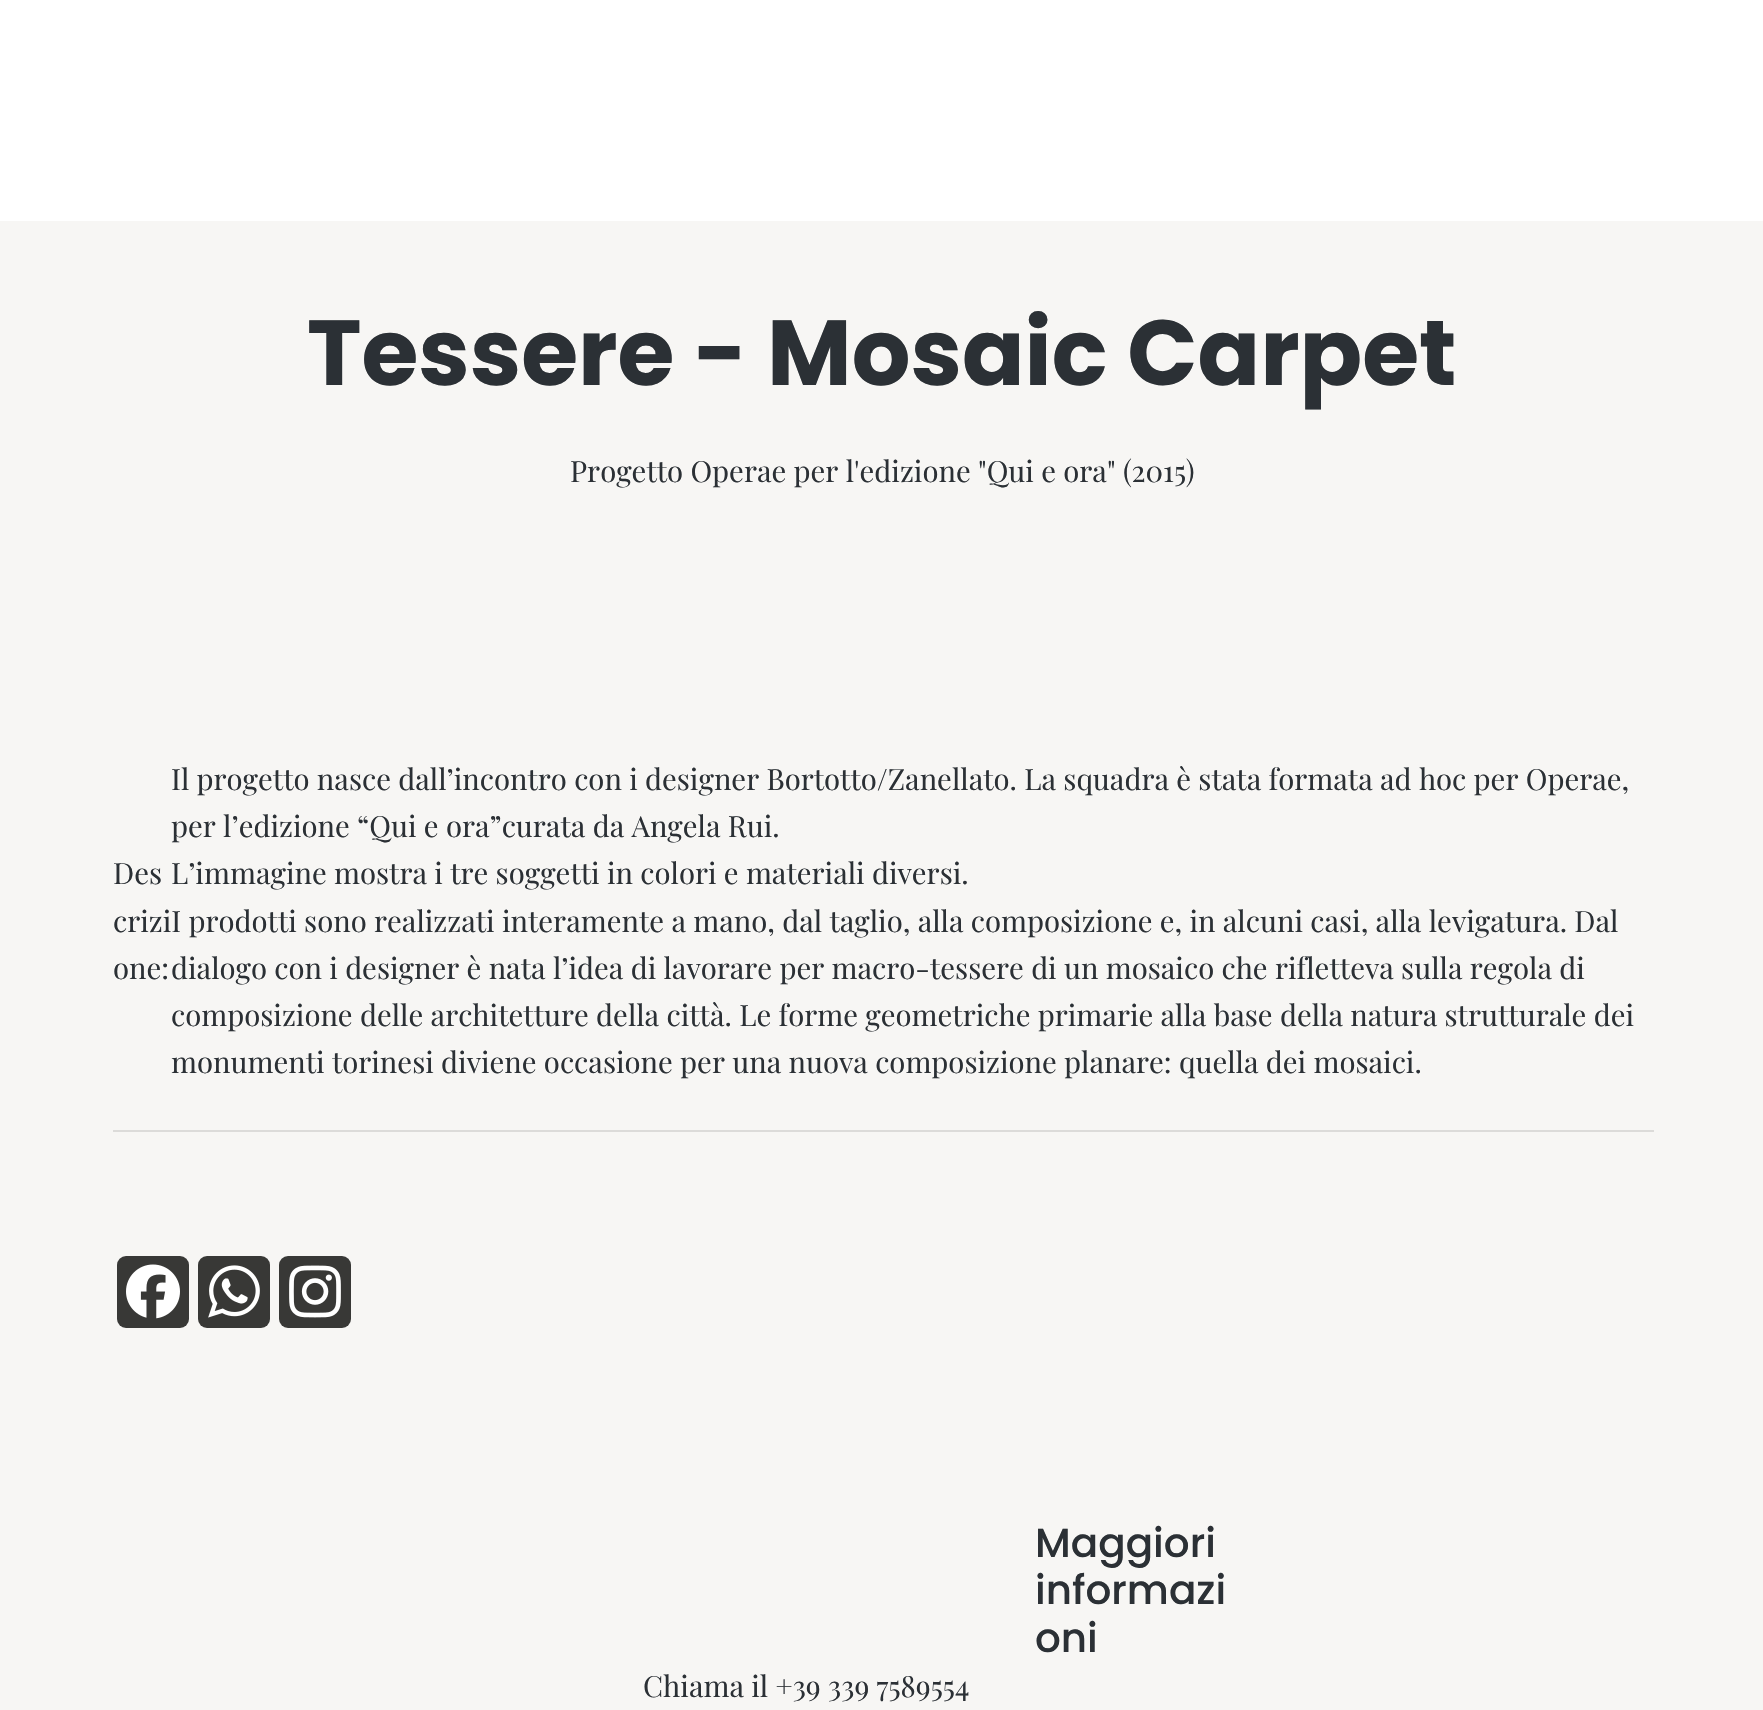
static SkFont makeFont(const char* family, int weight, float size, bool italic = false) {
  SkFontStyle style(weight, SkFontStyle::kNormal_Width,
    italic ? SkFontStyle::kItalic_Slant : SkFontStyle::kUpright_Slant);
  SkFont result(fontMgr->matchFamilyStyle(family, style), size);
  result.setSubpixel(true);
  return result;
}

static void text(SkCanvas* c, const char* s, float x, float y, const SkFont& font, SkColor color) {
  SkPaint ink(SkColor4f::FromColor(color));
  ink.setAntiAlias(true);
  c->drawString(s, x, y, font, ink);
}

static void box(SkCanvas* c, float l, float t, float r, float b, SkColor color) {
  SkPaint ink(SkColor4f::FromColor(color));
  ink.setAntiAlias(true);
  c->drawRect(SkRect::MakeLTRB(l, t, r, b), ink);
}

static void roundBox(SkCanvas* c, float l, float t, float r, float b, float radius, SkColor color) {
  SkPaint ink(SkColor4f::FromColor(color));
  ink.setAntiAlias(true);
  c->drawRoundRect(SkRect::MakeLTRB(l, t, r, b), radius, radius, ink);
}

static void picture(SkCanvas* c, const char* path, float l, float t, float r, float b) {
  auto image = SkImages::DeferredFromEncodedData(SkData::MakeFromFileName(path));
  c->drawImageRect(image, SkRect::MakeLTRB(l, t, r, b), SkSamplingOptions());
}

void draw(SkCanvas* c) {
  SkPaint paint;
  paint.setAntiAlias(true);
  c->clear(0xfff7f6f4);
  box(c, 0, 0, 1763, 221, 0xffffffff);
  SkFont face1 = makeFont("Poppins", 700, 92.25f);
  text(c, "Tessere - Mosaic Carpet", 307, 385, face1, 0xff2b3035);
  SkFont face2 = makeFont("Playfair Display", 400, 29.25f);
  text(c, "Progetto Operae per l'edizione \"Qui e ora\" (2015)", 570, 482, face2, 0xff2b3035);
  box(c, 113, 1130, 1654, 1132, 0xffdcdbd9);
  text(c, "Il progetto nasce dall’incontro con i designer Bortotto/Zanellato. La squadra è stata formata ad hoc per Operae,", 171, 790, face2, 0xff2b3035);
  text(c, "per l’edizione “Qui e ora”curata da Angela Rui.", 171, 837, face2, 0xff2b3035);
  text(c, "L’immagine mostra i tre soggetti in colori e materiali diversi.", 171, 884, face2, 0xff2b3035);
  text(c, "dialogo con i designer è nata l’idea di lavorare per macro-tessere di un mosaico che rifletteva sulla regola di", 171, 979, face2, 0xff2b3035);
  text(c, "composizione delle architetture della città. Le forme geometriche primarie alla base della natura strutturale dei", 171, 1026, face2, 0xff2b3035);
  text(c, "monumenti torinesi diviene occasione per una nuova composizione planare: quella dei mosaici.", 171, 1073, face2, 0xff2b3035);
  text(c, "Des", 113, 884, face2, 0xff2b3035);
  text(c, "criziI prodotti sono realizzati interamente a mano, dal taglio, alla composizione e, in alcuni casi, alla levigatura. Dal", 113, 932, face2, 0xff2b3035);
  text(c, "one:", 113, 979, face2, 0xff2b3035);
  roundBox(c, 117, 1256, 189, 1328, 9, 0xff383836);
  picture(c, "img_01.png", 126, 1264, 180, 1319);
  roundBox(c, 198, 1256, 270, 1328, 9, 0xff383836);
  picture(c, "img_02.png", 208, 1265, 260, 1318);
  roundBox(c, 279, 1256, 351, 1328, 9, 0xff383836);
  picture(c, "img_03.png", 289, 1265, 341, 1318);
  SkFont face3 = makeFont("Poppins", 500, 40.5f);
  text(c, "Maggiori", 1035, 1557, face3, 0xff2b3035);
  text(c, "informazi", 1035, 1604, face3, 0xff2b3035);
  text(c, "oni", 1035, 1652, face3, 0xff2b3035);
  text(c, "Chiama il +39 339 7589554", 643, 1697, face2, 0xff2b3035);
}
